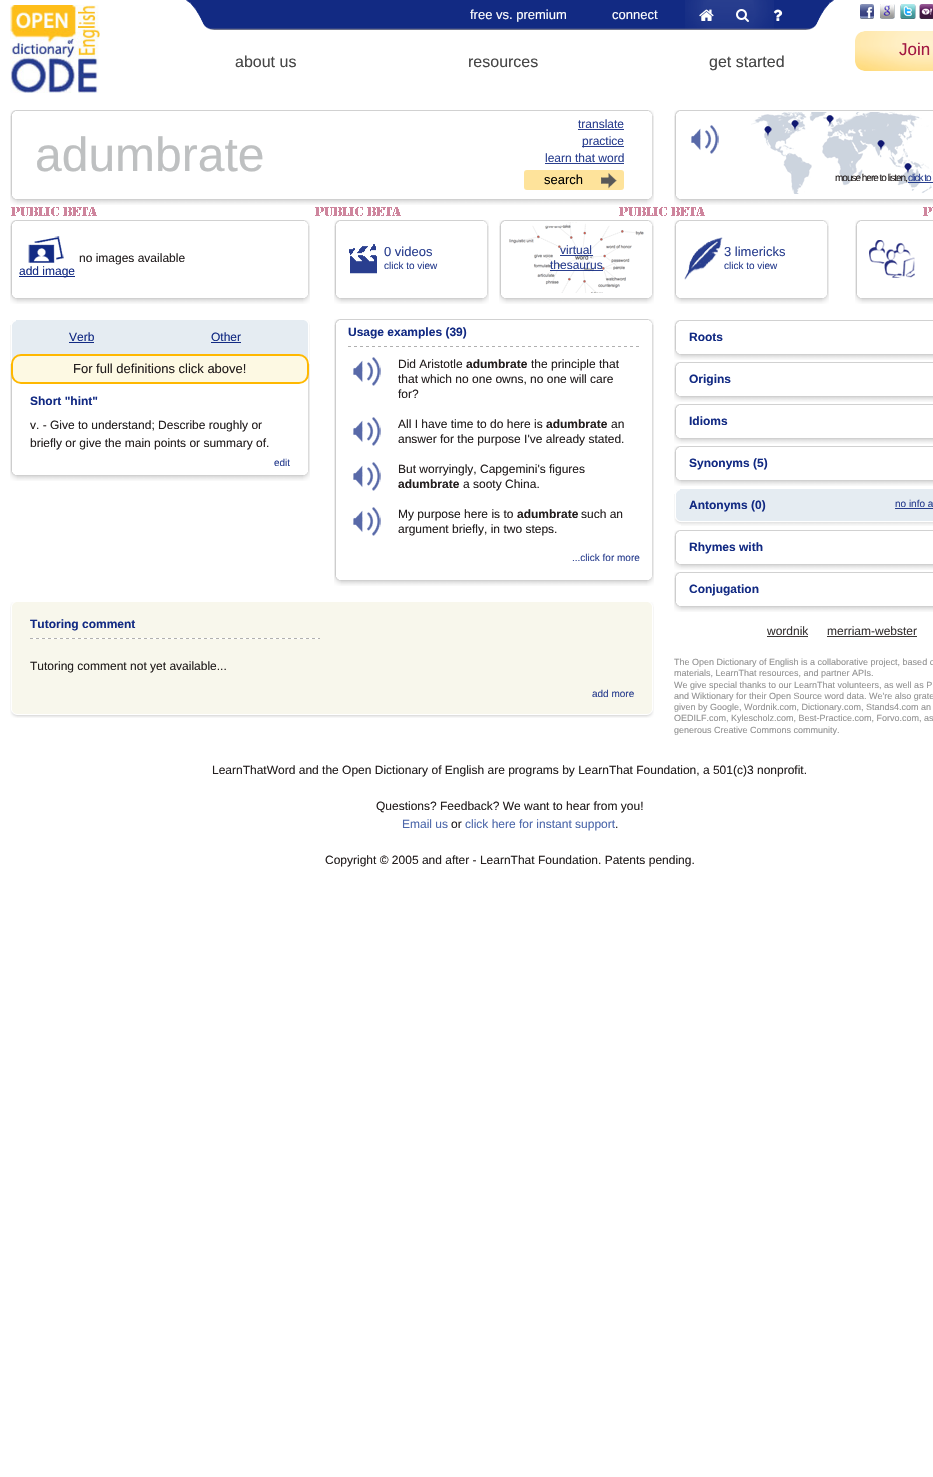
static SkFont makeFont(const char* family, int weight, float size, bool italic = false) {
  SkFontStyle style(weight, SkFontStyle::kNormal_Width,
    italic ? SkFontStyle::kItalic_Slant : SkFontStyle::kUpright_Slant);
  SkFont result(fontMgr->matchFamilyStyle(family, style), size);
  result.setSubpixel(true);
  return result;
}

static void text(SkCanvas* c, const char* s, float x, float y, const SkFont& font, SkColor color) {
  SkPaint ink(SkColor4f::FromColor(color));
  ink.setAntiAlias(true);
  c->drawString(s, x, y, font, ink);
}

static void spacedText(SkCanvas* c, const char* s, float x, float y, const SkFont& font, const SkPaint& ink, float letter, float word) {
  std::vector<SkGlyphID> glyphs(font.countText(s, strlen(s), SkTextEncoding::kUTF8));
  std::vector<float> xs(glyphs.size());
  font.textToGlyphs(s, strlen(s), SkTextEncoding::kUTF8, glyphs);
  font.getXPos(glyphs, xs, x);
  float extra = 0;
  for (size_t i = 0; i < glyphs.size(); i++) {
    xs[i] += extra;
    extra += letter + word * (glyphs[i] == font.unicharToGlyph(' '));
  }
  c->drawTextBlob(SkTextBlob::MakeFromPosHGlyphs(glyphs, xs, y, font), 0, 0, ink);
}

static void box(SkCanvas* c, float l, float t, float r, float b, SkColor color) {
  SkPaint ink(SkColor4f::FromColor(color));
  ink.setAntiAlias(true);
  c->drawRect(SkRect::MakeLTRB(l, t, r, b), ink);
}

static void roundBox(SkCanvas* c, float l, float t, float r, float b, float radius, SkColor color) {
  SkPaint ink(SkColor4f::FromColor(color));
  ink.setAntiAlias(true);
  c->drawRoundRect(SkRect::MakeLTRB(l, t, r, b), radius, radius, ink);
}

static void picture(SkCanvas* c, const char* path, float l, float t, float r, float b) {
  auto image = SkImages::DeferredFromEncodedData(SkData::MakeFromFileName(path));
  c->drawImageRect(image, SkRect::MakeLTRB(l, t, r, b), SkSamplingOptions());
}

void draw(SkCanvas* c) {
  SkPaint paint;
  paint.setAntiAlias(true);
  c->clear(0xffffffff);
  picture(c, "img_01.png", 10, 5, 100, 93);
  picture(c, "img_02.png", 214, 0, 806, 30);
  picture(c, "img_03.png", 186, 0, 214, 30);
  picture(c, "img_04.png", 685, 0, 774, 29);
  SkFont face1 = makeFont("Liberation Sans", 400, 13);
  text(c, "free vs. premium", 470, 19, face1, 0xffffffff);
  text(c, "connect", 612, 19, face1, 0xffffffff);
  picture(c, "img_05.png", 699, 9, 714, 21);
  picture(c, "img_06.png", 736, 9, 749, 22);
  picture(c, "img_07.png", 773, 9, 783, 21);
  picture(c, "img_08.png", 806, 0, 834, 30);
  SkFont face2 = makeFont("Liberation Sans", 400, 16);
  text(c, "about us", 235, 67, face2, 0xff464646);
  text(c, "resources", 468, 67, face2, 0xff464646);
  text(c, "get started", 709, 67, face2, 0xff464646);
  picture(c, "img_09.png", 860, 4, 874, 19);
  picture(c, "img_10.png", 880, 4, 895, 19);
  picture(c, "img_11.png", 900, 4, 916, 19);
  picture(c, "img_12.png", 919, 4, 933, 19);
  picture(c, "img_13.png", 855, 31, 933, 71);
  SkFont face3 = makeFont("Liberation Sans", 400, 17);
  text(c, "Join", 899, 55, face3, 0xffa31842);
  picture(c, "img_14.png", 11, 207, 933, 216);
  box(c, 16, 110, 648, 111, 0xffd1d1d1);
  picture(c, "img_15.png", 10, 110, 16, 116);
  picture(c, "img_16.png", 648, 110, 654, 116);
  picture(c, "img_17.png", 10, 116, 12, 194);
  picture(c, "img_18.png", 652, 116, 654, 194);
  SkFont face4 = makeFont("Liberation Sans", 400, 48);
  text(c, "adumbrate", 35, 171, face4, 0xffbec0c1);
  SkFont face5 = makeFont("Liberation Sans", 400, 12);
  text(c, "translate", 578, 128, face5, 0xff2a3f8f);
  box(c, 578, 129, 624, 130, 0xff2a3f8f);
  box(c, 582, 146, 624, 147, 0xff2a3f8f);
  text(c, "practice", 582, 145, face5, 0xff2a3f8f);
  text(c, "learn that word", 545, 162, face5, 0xff2a3f8f);
  box(c, 545, 163, 624, 164, 0xff2a3f8f);
  roundBox(c, 524, 170, 624, 190, 3, 0xfffee39b);
  picture(c, "img_19.png", 601, 173, 617, 189);
  text(c, "search", 544, 184, face1, 0xff000000);
  picture(c, "img_20.png", 17, 199, 647, 205);
  picture(c, "img_21.png", 10, 194, 17, 205);
  picture(c, "img_22.png", 647, 194, 654, 205);
  box(c, 680, 110, 933, 111, 0xffd1d1d1);
  picture(c, "img_15.png", 674, 110, 680, 116);
  picture(c, "img_17.png", 674, 116, 676, 194);
  picture(c, "img_23.png", 691, 125, 719, 154);
  picture(c, "img_24.png", 751, 112, 932, 194);
  SkFont face6 = makeFont("Liberation Sans", 400, 10);
  paint.setColor(0xff231e1e);
  spacedText(c, "mouse here to listen,", 835, 181, face6, paint, -1, 0);
  paint.setColor(0xff2a3f8f);
  spacedText(c, "click to", 908, 181, face6, paint, -1, 0);
  box(c, 908, 182, 933, 183, 0xe6122a83);
  picture(c, "img_25.png", 681, 194, 933, 205);
  picture(c, "img_21.png", 674, 194, 681, 205);
  box(c, 16, 220, 304, 221, 0xffd1d1d1);
  picture(c, "img_15.png", 10, 220, 16, 226);
  picture(c, "img_16.png", 304, 220, 310, 226);
  picture(c, "img_26.png", 10, 226, 12, 293);
  picture(c, "img_27.png", 308, 226, 310, 293);
  text(c, "no images available", 79, 262, face5, 0xff231e1e);
  picture(c, "img_28.png", 28, 236, 64, 263);
  box(c, 19, 276, 75, 277, 0xff122a83);
  text(c, "add image", 19, 275, face5, 0xff122a83);
  picture(c, "img_29.png", 17, 298, 303, 304);
  picture(c, "img_21.png", 10, 293, 17, 304);
  picture(c, "img_22.png", 303, 293, 310, 304);
  box(c, 16, 320, 304, 325, 0xffe5ecf2);
  picture(c, "img_30.png", 12, 321, 16, 325);
  picture(c, "img_31.png", 304, 320, 310, 325);
  box(c, 12, 325, 308, 360, 0xffe5ecf2);
  picture(c, "img_32.png", 10, 325, 12, 362);
  picture(c, "img_33.png", 308, 325, 310, 362);
  text(c, "Verb", 69, 341, face5, 0xff122a83);
  box(c, 69, 342, 94, 343, 0xff122a83);
  text(c, "Other", 211, 341, face5, 0xff122a83);
  box(c, 211, 342, 241, 343, 0xff122a83);
  picture(c, "img_34.png", 10, 364, 12, 470);
  picture(c, "img_35.png", 308, 364, 310, 470);
  paint.setColor(0xfffdf9e3);
  c->drawRoundRect(SkRect::MakeLTRB(12, 355, 308, 383), 9, 9, paint);
  paint.setStyle(SkPaint::kStroke_Style);
  paint.setStrokeWidth(2);
  paint.setColor(0xffffb800);
  c->drawRoundRect(SkRect::MakeLTRB(12, 355, 308, 383), 9, 9, paint);
  text(c, "For full definitions click above!", 73, 373, face1, 0xff231e1e);
  SkFont face7 = makeFont("Liberation Sans", 700, 12);
  text(c, "Short \"hint\"", 30, 405, face7, 0xff122a83);
  text(c, "v. - Give to understand; Describe roughly or", 30, 429, face5, 0xff231e1e);
  text(c, "briefly or give the main points or summary of.", 30, 447, face5, 0xff231e1e);
  text(c, "edit", 274, 466, face6, 0xff2a3f8f);
  picture(c, "img_29.png", 17, 475, 303, 481);
  picture(c, "img_21.png", 10, 470, 17, 481);
  picture(c, "img_22.png", 303, 470, 310, 481);
  box(c, 340, 220, 483, 221, 0xffd1d1d1);
  picture(c, "img_15.png", 334, 220, 340, 226);
  picture(c, "img_16.png", 483, 220, 489, 226);
  picture(c, "img_26.png", 334, 226, 336, 293);
  picture(c, "img_27.png", 487, 226, 489, 293);
  picture(c, "img_36.png", 349, 244, 377, 274);
  text(c, "0 videos", 384, 256, face1, 0xff2a3f8f);
  text(c, "click to view", 384, 269, face6, 0xff2a3f8f);
  picture(c, "img_37.png", 341, 298, 482, 304);
  picture(c, "img_21.png", 334, 293, 341, 304);
  picture(c, "img_22.png", 482, 293, 489, 304);
  box(c, 505, 220, 648, 221, 0xffd1d1d1);
  picture(c, "img_15.png", 499, 220, 505, 226);
  picture(c, "img_16.png", 648, 220, 654, 226);
  picture(c, "img_26.png", 499, 226, 501, 293);
  picture(c, "img_27.png", 652, 226, 654, 293);
  picture(c, "img_38.png", 509, 222, 644, 293);
  text(c, "virtual", 560, 254, face5, 0xff2a3f8f);
  box(c, 560, 255, 593, 256, 0xe6122a83);
  text(c, "thesaurus", 550, 269, face5, 0xff2a3f8f);
  box(c, 550, 270, 603, 271, 0xe6122a83);
  picture(c, "img_39.png", 506, 293, 647, 304);
  picture(c, "img_21.png", 499, 293, 506, 304);
  picture(c, "img_22.png", 647, 293, 654, 304);
  box(c, 340, 319, 648, 320, 0xffd1d1d1);
  picture(c, "img_15.png", 334, 319, 340, 325);
  picture(c, "img_16.png", 648, 319, 654, 325);
  picture(c, "img_40.png", 334, 325, 336, 575);
  picture(c, "img_41.png", 652, 325, 654, 575);
  picture(c, "img_42.png", 348, 346, 639, 347);
  text(c, "Usage examples (39)", 348, 336, face7, 0xff122a83);
  picture(c, "img_23.png", 353, 357, 381, 386);
  text(c, "Did Aristotle", 398, 368, face5, 0xff231e1e);
  text(c, "adumbrate", 466, 368, face7, 0xff231e1e);
  text(c, "the principle that", 531, 368, face5, 0xff231e1e);
  text(c, "that which no one owns, no one will care", 398, 383, face5, 0xff231e1e);
  text(c, "for?", 398, 398, face5, 0xff231e1e);
  picture(c, "img_23.png", 353, 417, 381, 446);
  text(c, "All I have time to do here is", 398, 428, face5, 0xff231e1e);
  text(c, "adumbrate", 546, 428, face7, 0xff231e1e);
  text(c, "an", 611, 428, face5, 0xff231e1e);
  text(c, "answer for the purpose I've already stated.", 398, 443, face5, 0xff231e1e);
  picture(c, "img_23.png", 353, 462, 381, 491);
  text(c, "But worryingly, Capgemini's figures", 398, 473, face5, 0xff231e1e);
  text(c, "adumbrate", 398, 488, face7, 0xff231e1e);
  text(c, "a sooty China.", 463, 488, face5, 0xff231e1e);
  picture(c, "img_23.png", 353, 507, 381, 536);
  text(c, "My purpose here is to", 398, 518, face5, 0xff231e1e);
  text(c, "adumbrate", 517, 518, face7, 0xff231e1e);
  text(c, "such an", 581, 518, face5, 0xff231e1e);
  text(c, "argument briefly, in two steps.", 398, 533, face5, 0xff231e1e);
  text(c, "...click for more", 572, 561, face6, 0xff2a3f8f);
  picture(c, "img_43.png", 341, 580, 647, 586);
  picture(c, "img_21.png", 334, 575, 341, 586);
  picture(c, "img_22.png", 647, 575, 654, 586);
  box(c, 16, 602, 648, 607, 0xfff8f7ec);
  picture(c, "img_44.png", 10, 602, 16, 607);
  picture(c, "img_45.png", 648, 602, 654, 607);
  box(c, 12, 607, 652, 710, 0xfff8f7ec);
  picture(c, "img_46.png", 10, 607, 12, 710);
  picture(c, "img_47.png", 652, 607, 654, 710);
  picture(c, "img_48.png", 30, 638, 320, 639);
  text(c, "Tutoring comment", 30, 628, face7, 0xff122a83);
  text(c, "Tutoring comment not yet available...", 30, 670, face5, 0xff231e1e);
  text(c, "add more", 592, 697, face6, 0xff2a3f8f);
  picture(c, "img_49.png", 17, 710, 647, 718);
  picture(c, "img_50.png", 10, 710, 17, 718);
  picture(c, "img_51.png", 647, 710, 654, 718);
  box(c, 680, 220, 823, 221, 0xffd1d1d1);
  picture(c, "img_15.png", 674, 220, 680, 226);
  picture(c, "img_16.png", 823, 220, 829, 226);
  picture(c, "img_26.png", 674, 226, 676, 293);
  picture(c, "img_27.png", 827, 226, 829, 293);
  picture(c, "img_52.png", 684, 237, 723, 280);
  text(c, "3 limericks", 724, 256, face1, 0xff2a3f8f);
  text(c, "click to view", 724, 269, face6, 0xff2a3f8f);
  picture(c, "img_37.png", 681, 298, 822, 304);
  picture(c, "img_21.png", 674, 293, 681, 304);
  picture(c, "img_22.png", 822, 293, 829, 304);
  box(c, 861, 220, 933, 221, 0xffd1d1d1);
  picture(c, "img_15.png", 855, 220, 861, 226);
  picture(c, "img_26.png", 855, 226, 857, 293);
  picture(c, "img_53.png", 869, 240, 915, 278);
  picture(c, "img_54.png", 862, 298, 933, 304);
  picture(c, "img_21.png", 855, 293, 862, 304);
  box(c, 680, 320, 933, 321, 0xffd1d1d1);
  picture(c, "img_15.png", 674, 320, 680, 326);
  picture(c, "img_55.png", 674, 326, 676, 349);
  text(c, "Roots", 689, 341, face7, 0xff122a83);
  picture(c, "img_56.png", 681, 354, 933, 360);
  picture(c, "img_21.png", 674, 349, 681, 360);
  box(c, 680, 362, 933, 363, 0xffd1d1d1);
  picture(c, "img_15.png", 674, 362, 680, 368);
  picture(c, "img_55.png", 674, 368, 676, 391);
  text(c, "Origins", 689, 383, face7, 0xff122a83);
  picture(c, "img_56.png", 681, 396, 933, 402);
  picture(c, "img_21.png", 674, 391, 681, 402);
  box(c, 680, 404, 933, 405, 0xffd1d1d1);
  picture(c, "img_15.png", 674, 404, 680, 410);
  picture(c, "img_55.png", 674, 410, 676, 433);
  text(c, "Idioms", 689, 425, face7, 0xff122a83);
  picture(c, "img_56.png", 681, 438, 933, 444);
  picture(c, "img_21.png", 674, 433, 681, 444);
  box(c, 680, 446, 933, 447, 0xffd1d1d1);
  picture(c, "img_15.png", 674, 446, 680, 452);
  picture(c, "img_55.png", 674, 452, 676, 475);
  text(c, "Synonyms (5)", 689, 467, face7, 0xff122a83);
  picture(c, "img_56.png", 681, 480, 933, 486);
  picture(c, "img_21.png", 674, 475, 681, 486);
  box(c, 680, 489, 933, 494, 0xffe5ecf2);
  picture(c, "img_30.png", 676, 490, 680, 494);
  box(c, 676, 494, 933, 517, 0xffe5ecf2);
  picture(c, "img_57.png", 674, 494, 676, 517);
  text(c, "Antonyms (0)", 689, 509, face7, 0xff122a83);
  text(c, "no info a", 895, 507, face6, 0xff2a3f8f);
  box(c, 895, 508, 933, 509, 0xff273d8e);
  picture(c, "img_58.png", 681, 517, 933, 526);
  picture(c, "img_59.png", 674, 517, 681, 525);
  box(c, 680, 530, 933, 531, 0xffd1d1d1);
  picture(c, "img_15.png", 674, 530, 680, 536);
  picture(c, "img_55.png", 674, 536, 676, 559);
  text(c, "Rhymes with", 689, 551, face7, 0xff122a83);
  picture(c, "img_56.png", 681, 564, 933, 570);
  picture(c, "img_21.png", 674, 559, 681, 570);
  box(c, 680, 572, 933, 573, 0xffd1d1d1);
  picture(c, "img_15.png", 674, 572, 680, 578);
  picture(c, "img_55.png", 674, 578, 676, 601);
  text(c, "Conjugation", 689, 593, face7, 0xff122a83);
  picture(c, "img_56.png", 681, 606, 933, 612);
  picture(c, "img_21.png", 674, 601, 681, 612);
  text(c, "wordnik", 767, 635, face5, 0xff393535);
  box(c, 767, 636, 808, 637, 0xff393535);
  text(c, "merriam-webster", 827, 635, face5, 0xff393535);
  box(c, 827, 636, 917, 637, 0xff393535);
  SkFont face8 = makeFont("Liberation Sans", 400, 9);
  text(c, "The Open Dictionary of English is a collaborative project, based o", 674, 665, face8, 0xff919191);
  text(c, "materials, LearnThat resources, and partner APIs.", 674, 676, face8, 0xff919191);
  text(c, "We give special thanks to our LearnThat volunteers, as well as P", 674, 688, face8, 0xff919191);
  text(c, "and Wiktionary for their Open Source word data. We're also grate", 674, 699, face8, 0xff919191);
  text(c, "given by Google, Wordnik.com, Dictionary.com, Stands4.com an", 674, 710, face8, 0xff919191);
  text(c, "OEDILF.com, Kylescholz.com, Best-Practice.com, Forvo.com, as", 674, 721, face8, 0xff919191);
  text(c, "generous Creative Commons community.", 674, 733, face8, 0xff919191);
  text(c, "LearnThatWord and the Open Dictionary of English are programs by LearnThat Foundation, a 501(c)3 nonprofit.", 212, 774, face5, 0xff231e1e);
  text(c, "Questions? Feedback? We want to hear from you!", 376, 810, face5, 0xff231e1e);
  text(c, "Email us", 402, 828, face5, 0xff4d68ab);
  text(c, "or", 451, 828, face5, 0xff231e1e);
  text(c, "click here for instant support", 465, 828, face5, 0xff4d68ab);
  text(c, ".", 615, 828, face5, 0xff231e1e);
  text(c, "Copyright © 2005 and after - LearnThat Foundation. Patents pending.", 325, 864, face5, 0xff231e1e);
}
